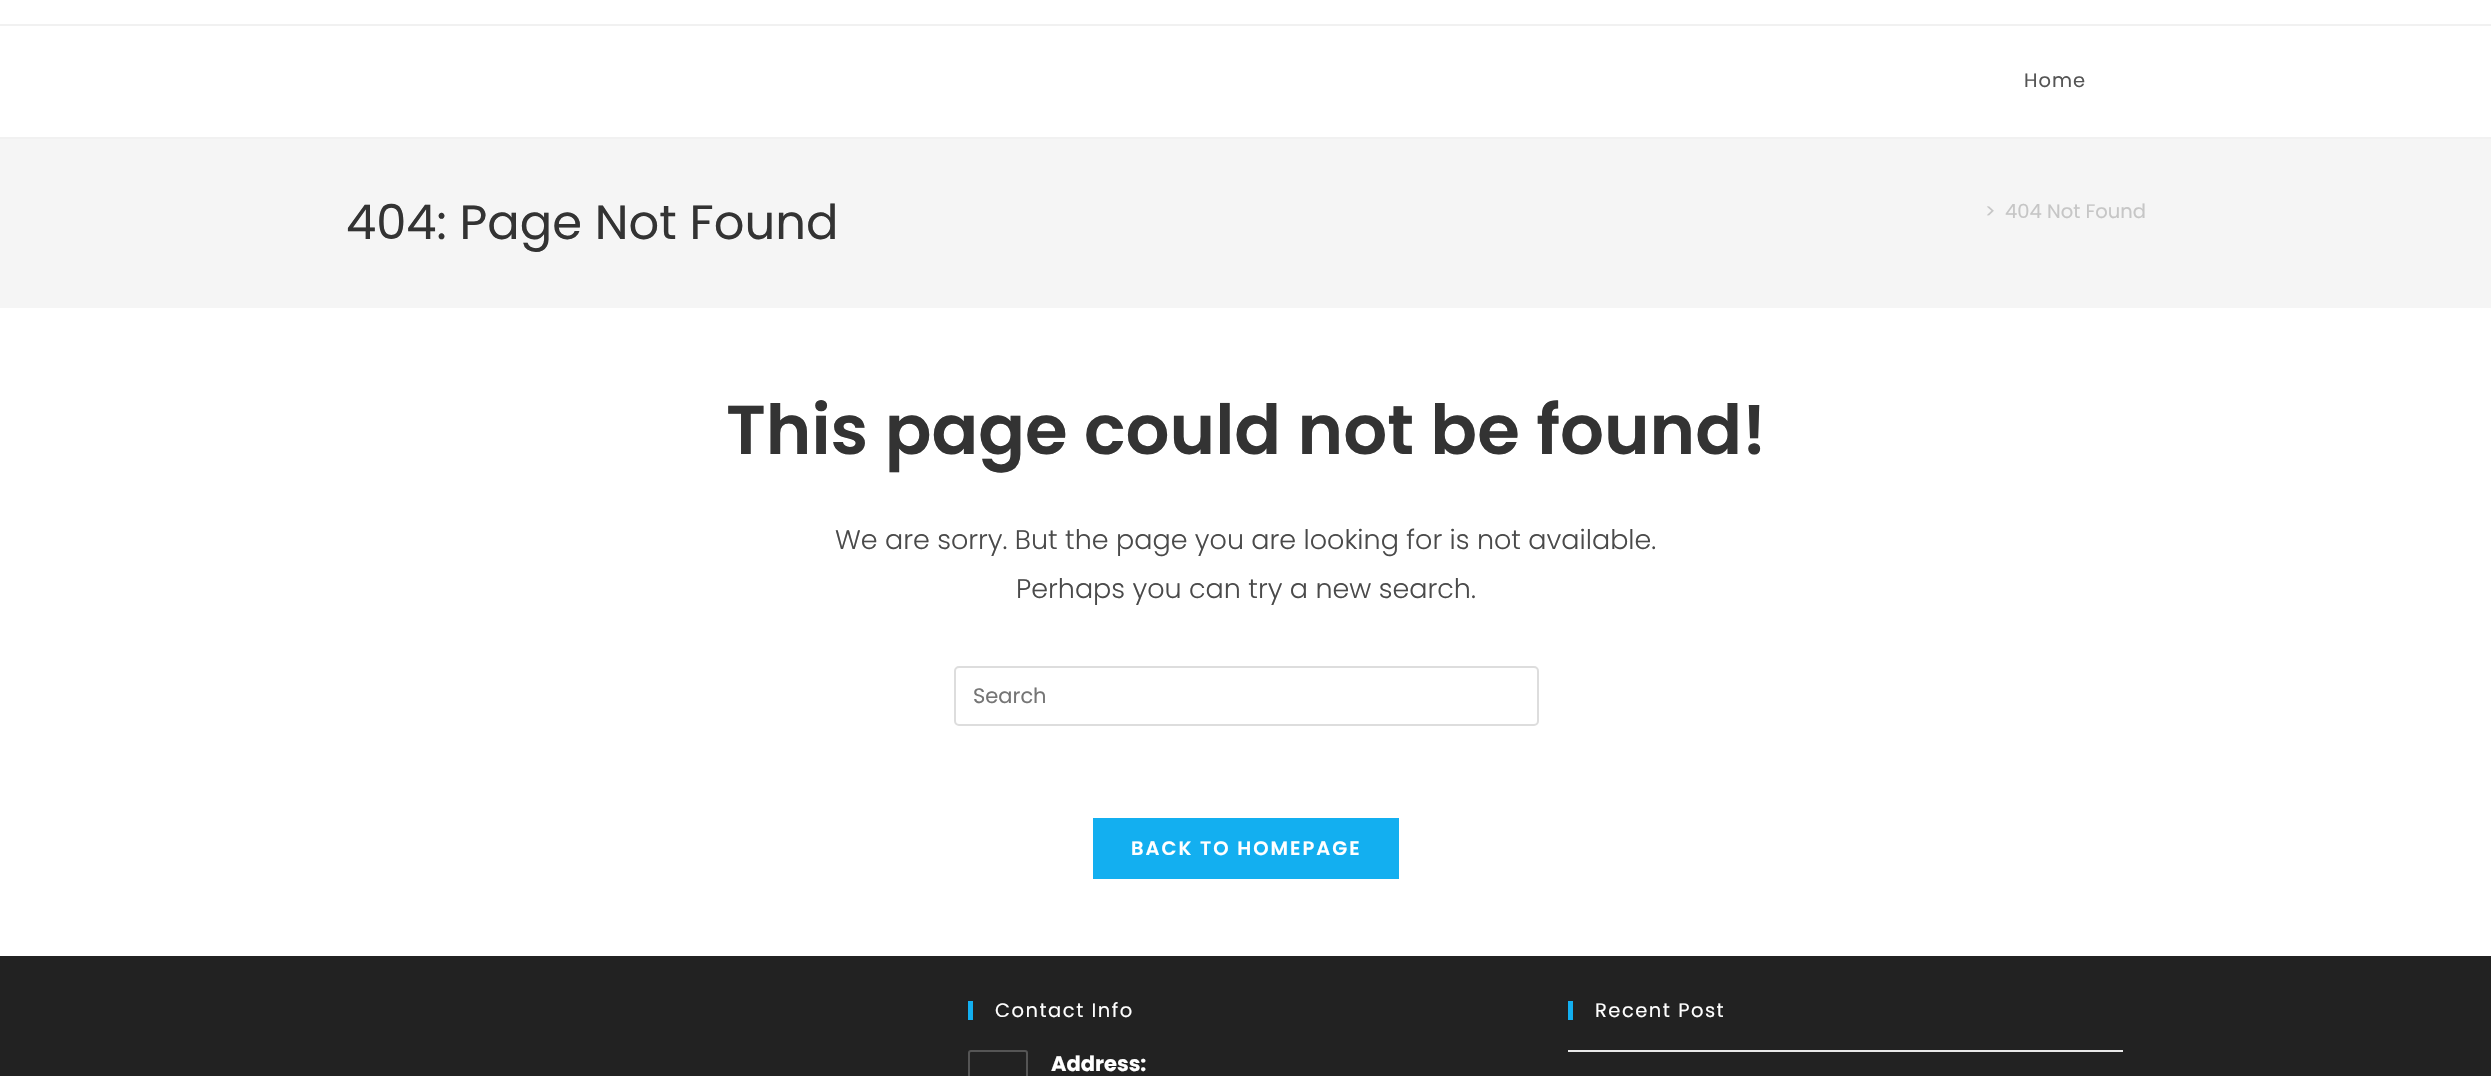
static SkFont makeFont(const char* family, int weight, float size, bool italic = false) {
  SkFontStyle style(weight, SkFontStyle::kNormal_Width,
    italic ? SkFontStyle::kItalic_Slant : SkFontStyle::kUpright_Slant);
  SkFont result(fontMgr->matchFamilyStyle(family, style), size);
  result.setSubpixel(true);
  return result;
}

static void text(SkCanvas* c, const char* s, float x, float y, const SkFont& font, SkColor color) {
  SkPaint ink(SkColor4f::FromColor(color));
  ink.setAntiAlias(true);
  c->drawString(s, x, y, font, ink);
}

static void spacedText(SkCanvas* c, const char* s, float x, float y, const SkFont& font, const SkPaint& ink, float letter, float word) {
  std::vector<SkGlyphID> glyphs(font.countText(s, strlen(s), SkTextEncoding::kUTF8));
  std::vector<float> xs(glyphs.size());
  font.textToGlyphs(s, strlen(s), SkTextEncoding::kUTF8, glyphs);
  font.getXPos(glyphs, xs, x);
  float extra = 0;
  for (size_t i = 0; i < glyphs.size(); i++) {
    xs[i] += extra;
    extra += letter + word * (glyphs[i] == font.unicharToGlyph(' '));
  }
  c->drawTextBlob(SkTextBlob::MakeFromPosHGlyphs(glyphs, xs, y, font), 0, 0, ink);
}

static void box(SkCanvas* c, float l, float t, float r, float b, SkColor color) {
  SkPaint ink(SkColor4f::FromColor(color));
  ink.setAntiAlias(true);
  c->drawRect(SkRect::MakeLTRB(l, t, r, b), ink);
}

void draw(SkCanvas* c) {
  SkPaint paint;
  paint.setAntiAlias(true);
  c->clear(0xffffffff);
  box(c, 0, 24, 2491, 26, 0xfff1f1f1);
  box(c, 0, 137, 2491, 139, 0xfff1f1f1);
  SkFont face1 = makeFont("Poppins", 400, 19.5f);
  paint.setColor(0xff555555);
  spacedText(c, "Home", 2024, 87, face1, paint, 1, 0);
  box(c, 0, 139, 2491, 308, 0xfff5f5f5);
  SkFont face2 = makeFont("Poppins", 400, 48);
  text(c, "404: Page Not Found", 346, 239, face2, 0xff333333);
  text(c, ">", 1985, 218, face1, 0xffc6c6c6);
  text(c, "404 Not Found", 2005, 218, face1, 0xffc6c6c6);
  SkFont face3 = makeFont("Poppins", 600, 69);
  text(c, "This page could not be found!", 726, 454, face3, 0xff333333);
  SkFont face4 = makeFont("Poppins", 300, 27);
  text(c, "We are sorry. But the page you are looking for is not available.", 835, 549, face4, 0xff4a4a4a);
  text(c, "Perhaps you can try a new search.", 1016, 598, face4, 0xff4a4a4a);
  paint.setStyle(SkPaint::kStroke_Style);
  paint.setStrokeWidth(2);
  paint.setColor(0xffdddddd);
  c->drawRoundRect(SkRect::MakeLTRB(955, 667, 1538, 725), 4, 4, paint);
  SkFont face5 = makeFont("Poppins", 400, 21);
  text(c, "Search", 973, 703, face5, 0xff757575);
  box(c, 1093, 818, 1399, 879, 0xff13aff0);
  SkFont face6 = makeFont("Poppins", 600, 19.5f);
  paint.setStyle(SkPaint::kFill_Style);
  paint.setColor(0xffffffff);
  spacedText(c, "BACK TO HOMEPAGE", 1131, 855, face6, paint, 2, 0);
  box(c, 0, 956, 2491, 1076, 0xff222222);
  box(c, 968, 1001, 973, 1020, 0xff13aff0);
  spacedText(c, "Contact Info", 995, 1017, face1, paint, 1.5f, 0);
  paint.setStyle(SkPaint::kStroke_Style);
  paint.setColor(0xff555555);
  c->drawRoundRect(SkRect::MakeLTRB(969, 1051, 1027, 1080), 2, 2, paint);
  SkFont face7 = makeFont("Poppins", 700, 21);
  text(c, "Address:", 1051, 1071, face7, 0xffffffff);
  box(c, 1568, 1001, 1573, 1020, 0xff13aff0);
  paint.setStyle(SkPaint::kFill_Style);
  paint.setColor(0xffffffff);
  spacedText(c, "Recent Post", 1595, 1017, face1, paint, 1.5f, 0);
  box(c, 1568, 1050, 2123, 1052, 0xffe9e9e9);
}
